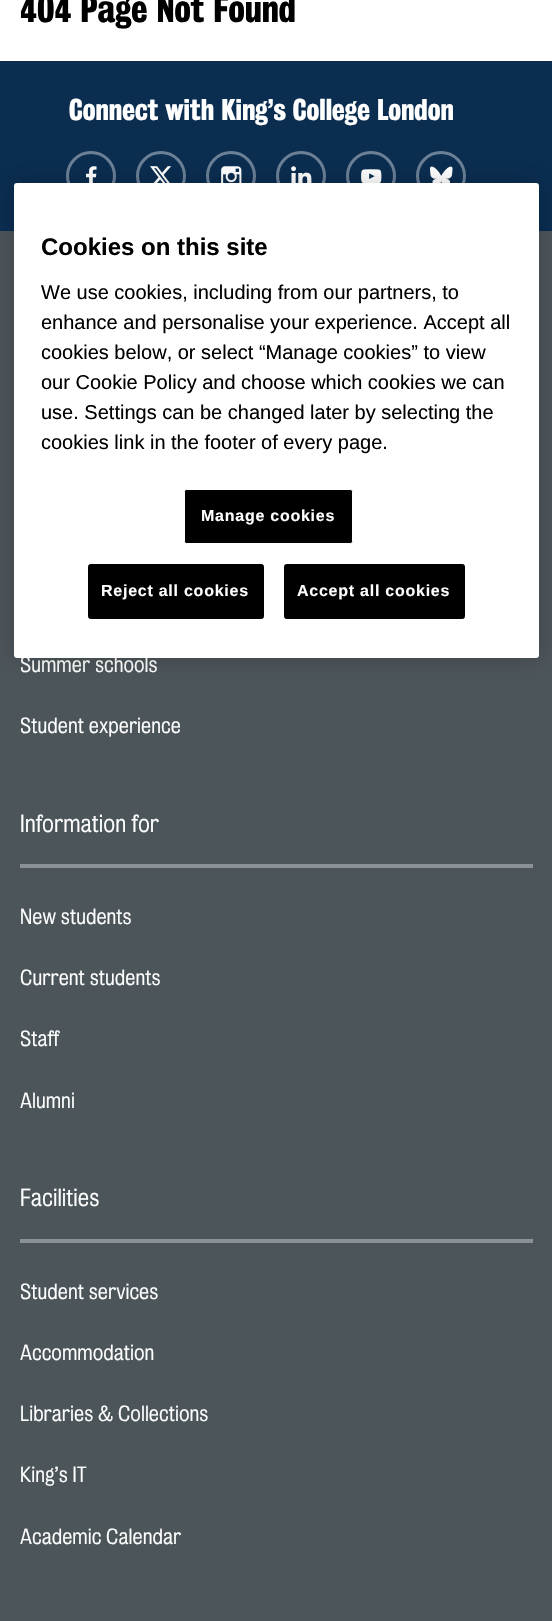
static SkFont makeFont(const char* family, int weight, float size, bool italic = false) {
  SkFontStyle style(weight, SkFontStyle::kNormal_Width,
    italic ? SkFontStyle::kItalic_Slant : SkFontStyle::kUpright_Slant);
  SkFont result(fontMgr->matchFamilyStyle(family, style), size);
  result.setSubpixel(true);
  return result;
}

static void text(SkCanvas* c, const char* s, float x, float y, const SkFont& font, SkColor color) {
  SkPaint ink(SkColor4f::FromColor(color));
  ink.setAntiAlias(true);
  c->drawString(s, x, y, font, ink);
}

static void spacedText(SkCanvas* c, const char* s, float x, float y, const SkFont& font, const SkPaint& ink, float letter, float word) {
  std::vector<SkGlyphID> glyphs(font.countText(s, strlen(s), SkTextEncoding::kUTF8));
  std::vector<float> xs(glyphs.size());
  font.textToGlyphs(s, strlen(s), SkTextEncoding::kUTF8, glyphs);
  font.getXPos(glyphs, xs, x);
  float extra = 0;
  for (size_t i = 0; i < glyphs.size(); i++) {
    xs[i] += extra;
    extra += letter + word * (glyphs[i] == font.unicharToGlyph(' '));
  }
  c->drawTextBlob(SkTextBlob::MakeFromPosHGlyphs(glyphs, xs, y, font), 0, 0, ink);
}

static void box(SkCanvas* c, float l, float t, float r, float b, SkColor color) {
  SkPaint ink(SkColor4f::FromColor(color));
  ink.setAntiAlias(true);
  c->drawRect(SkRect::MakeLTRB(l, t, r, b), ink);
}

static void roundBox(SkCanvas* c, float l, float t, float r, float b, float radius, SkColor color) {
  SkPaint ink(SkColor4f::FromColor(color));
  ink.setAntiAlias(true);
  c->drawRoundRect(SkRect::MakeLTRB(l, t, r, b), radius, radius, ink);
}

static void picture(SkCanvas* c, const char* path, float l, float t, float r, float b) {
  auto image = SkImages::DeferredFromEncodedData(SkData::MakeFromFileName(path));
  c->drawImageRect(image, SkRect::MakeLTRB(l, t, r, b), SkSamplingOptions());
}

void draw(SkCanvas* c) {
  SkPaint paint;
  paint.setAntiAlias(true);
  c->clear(0xffffffff);
  SkFont face1 = makeFont("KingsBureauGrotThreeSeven", 700, 35);
  text(c, "404 Page Not Found", 20, 22, face1, 0xff000000);
  box(c, 0, 61, 552, 231, 0xff0a2d50);
  SkFont face2 = makeFont("KingsBureauGrotThreeSeven", 700, 27.5f);
  text(c, "Connect with King’s College London", 69, 120, face2, 0xffffffff);
  paint.setStyle(SkPaint::kStroke_Style);
  paint.setStrokeWidth(3);
  paint.setColor(0xff6c8196);
  c->drawCircle(91, 176, 23.5f, paint);
  picture(c, "img_01.png", 86, 166, 97, 183);
  c->drawCircle(161, 176, 23.5f, paint);
  picture(c, "img_02.png", 150, 166, 171, 183);
  c->drawCircle(231, 176, 23.5f, paint);
  picture(c, "img_03.png", 221, 166, 242, 183);
  c->drawCircle(301, 176, 23.5f, paint);
  picture(c, "img_04.png", 291, 166, 312, 183);
  c->drawCircle(371, 176, 23.5f, paint);
  picture(c, "img_05.png", 361, 169, 382, 183);
  c->drawCircle(441, 176, 23.5f, paint);
  picture(c, "img_06.png", 430, 166, 453, 183);
  box(c, 0, 231, 552, 1621, 0xff4c555a);
  SkFont face3 = makeFont("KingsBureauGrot", 300, 20);
  text(c, "Summer schools", 20, 672, face3, 0xffffffff);
  text(c, "Student experience", 20, 733, face3, 0xffffffff);
  box(c, 20, 864, 533, 868, 0xff8b9296);
  SkFont face4 = makeFont("KingsBureauGrot", 300, 22.5f);
  text(c, "Information for", 20, 832, face4, 0xffffffff);
  text(c, "New students", 20, 924, face3, 0xffffffff);
  text(c, "Current students", 20, 985, face3, 0xffffffff);
  text(c, "Staff", 20, 1046, face3, 0xffffffff);
  text(c, "Alumni", 20, 1108, face3, 0xffffffff);
  box(c, 20, 1239, 533, 1243, 0xff8b9296);
  text(c, "Facilities", 20, 1206, face4, 0xffffffff);
  text(c, "Student services", 20, 1299, face3, 0xffffffff);
  text(c, "Accommodation", 20, 1360, face3, 0xffffffff);
  text(c, "Libraries & Collections", 20, 1421, face3, 0xffffffff);
  text(c, "King’s IT", 20, 1482, face3, 0xffffffff);
  text(c, "Academic Calendar", 20, 1544, face3, 0xffffffff);
  paint.setStyle(SkPaint::kFill_Style);
  paint.setColor(0x33000000);
  paint.setMaskFilter(SkMaskFilter::MakeBlur(kNormal_SkBlurStyle, 11));
  c->drawRoundRect(SkRect::MakeLTRB(14, 183, 539, 658), 3, 3, paint);
  paint.setMaskFilter(nullptr);
  roundBox(c, 14, 183, 539, 658, 3, 0xffffffff);
  SkFont face5 = makeFont("Liberation Sans", 700, 24);
  text(c, "Cookies on this site", 41, 255, face5, 0xff000000);
  SkFont face6 = makeFont("Liberation Sans", 400, 20);
  text(c, "We use cookies, including from our partners, to", 41, 299, face6, 0xff000000);
  text(c, "enhance and personalise your experience. Accept all", 41, 329, face6, 0xff000000);
  text(c, "cookies below, or select “Manage cookies” to view", 41, 359, face6, 0xff000000);
  text(c, "our Cookie Policy and choose which cookies we can", 41, 389, face6, 0xff000000);
  text(c, "use. Settings can be changed later by selecting the", 41, 419, face6, 0xff000000);
  text(c, "cookies link in the footer of every page.", 41, 449, face6, 0xff000000);
  paint.setColor(0xff000000);
  c->drawRoundRect(SkRect::MakeLTRB(184.5f, 489.5f, 352.5f, 543.5f), 2, 2, paint);
  paint.setStyle(SkPaint::kStroke_Style);
  paint.setStrokeWidth(1);
  paint.setColor(0xffffffff);
  c->drawRoundRect(SkRect::MakeLTRB(184.5f, 489.5f, 352.5f, 543.5f), 2, 2, paint);
  SkFont face7 = makeFont("Liberation Sans", 700, 16);
  paint.setStyle(SkPaint::kFill_Style);
  spacedText(c, "Manage cookies", 201, 521, face7, paint, 0.75f, 0);
  paint.setColor(0xff000000);
  c->drawRoundRect(SkRect::MakeLTRB(88.5f, 564.5f, 263.5f, 618.5f), 2, 2, paint);
  paint.setStyle(SkPaint::kStroke_Style);
  c->drawRoundRect(SkRect::MakeLTRB(88.5f, 564.5f, 263.5f, 618.5f), 2, 2, paint);
  paint.setStyle(SkPaint::kFill_Style);
  paint.setColor(0xffffffff);
  spacedText(c, "Reject all cookies", 101, 596, face7, paint, 0.75f, 0);
  paint.setColor(0xff000000);
  c->drawRoundRect(SkRect::MakeLTRB(284.5f, 564.5f, 464.5f, 618.5f), 2, 2, paint);
  paint.setStyle(SkPaint::kStroke_Style);
  c->drawRoundRect(SkRect::MakeLTRB(284.5f, 564.5f, 464.5f, 618.5f), 2, 2, paint);
  paint.setStyle(SkPaint::kFill_Style);
  paint.setColor(0xffffffff);
  spacedText(c, "Accept all cookies", 297, 596, face7, paint, 0.75f, 0);
}
